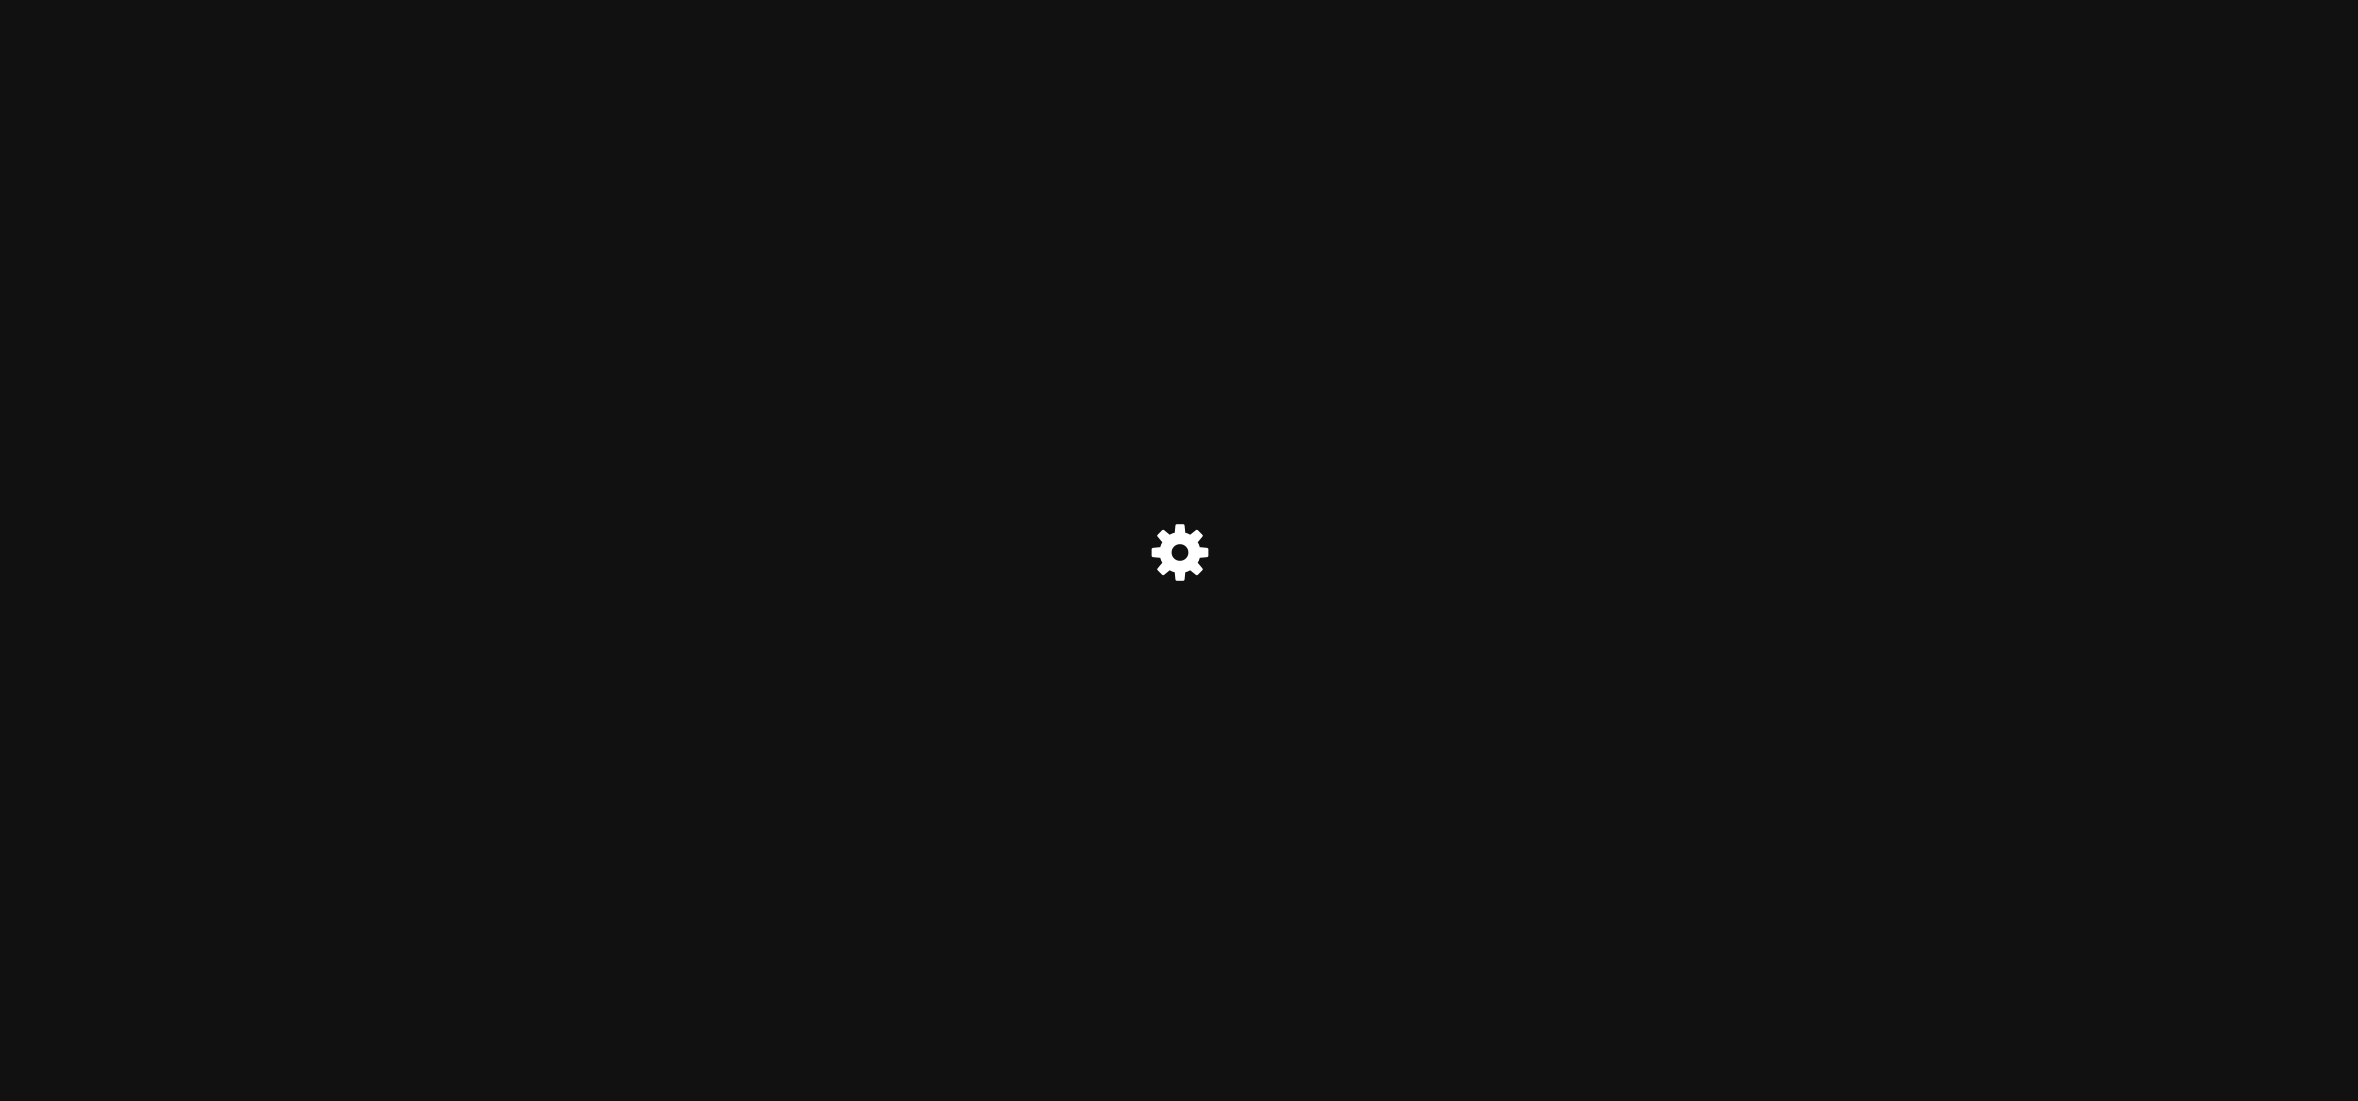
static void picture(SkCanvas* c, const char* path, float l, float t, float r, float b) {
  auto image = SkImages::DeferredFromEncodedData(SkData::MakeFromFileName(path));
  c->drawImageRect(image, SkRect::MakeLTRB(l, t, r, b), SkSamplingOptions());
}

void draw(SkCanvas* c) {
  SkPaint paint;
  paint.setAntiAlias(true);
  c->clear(0xff111111);
  picture(c, "img_01.png", 1151, 524, 1209, 581);
}
